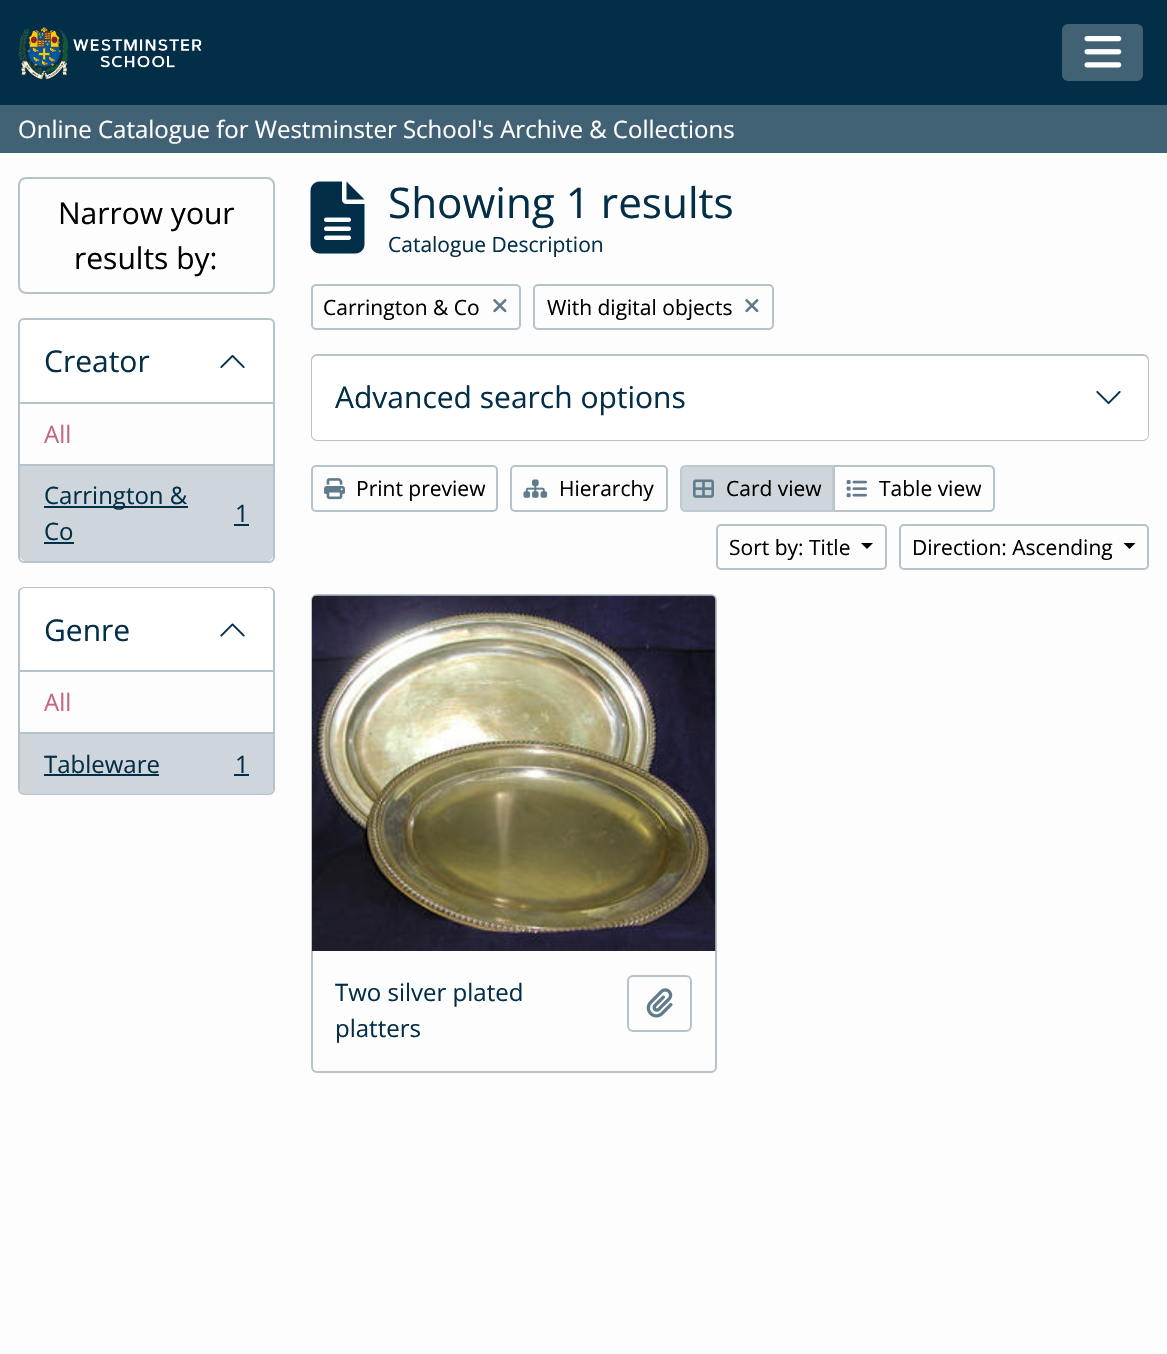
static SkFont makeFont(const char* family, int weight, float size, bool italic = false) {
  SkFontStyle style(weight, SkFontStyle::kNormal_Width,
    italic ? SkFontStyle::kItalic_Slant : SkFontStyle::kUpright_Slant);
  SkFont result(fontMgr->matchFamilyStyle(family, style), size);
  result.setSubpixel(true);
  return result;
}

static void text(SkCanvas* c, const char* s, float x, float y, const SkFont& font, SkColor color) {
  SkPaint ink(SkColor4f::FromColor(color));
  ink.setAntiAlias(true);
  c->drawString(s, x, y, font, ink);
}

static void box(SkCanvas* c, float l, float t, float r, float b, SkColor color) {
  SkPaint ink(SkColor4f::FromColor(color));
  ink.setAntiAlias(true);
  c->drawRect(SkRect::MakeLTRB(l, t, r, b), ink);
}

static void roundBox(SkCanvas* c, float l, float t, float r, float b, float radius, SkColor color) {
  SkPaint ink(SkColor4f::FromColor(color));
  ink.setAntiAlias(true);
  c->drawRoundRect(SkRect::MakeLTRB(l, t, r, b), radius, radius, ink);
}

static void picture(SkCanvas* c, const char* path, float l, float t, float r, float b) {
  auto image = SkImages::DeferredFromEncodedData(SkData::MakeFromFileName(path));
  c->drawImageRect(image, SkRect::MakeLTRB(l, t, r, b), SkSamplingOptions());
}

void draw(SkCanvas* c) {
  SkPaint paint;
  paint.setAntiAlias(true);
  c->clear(0xfffdfdfe);
  box(c, 0, 0, 1167, 105, 0xff032e47);
  picture(c, "img_01.png", 18, 27, 202, 80);
  paint.setColor(0xff416174);
  c->drawRoundRect(SkRect::MakeLTRB(1063, 25, 1142, 80), 5, 5, paint);
  paint.setStyle(SkPaint::kStroke_Style);
  paint.setStrokeWidth(2);
  c->drawRoundRect(SkRect::MakeLTRB(1063, 25, 1142, 80), 5, 5, paint);
  picture(c, "img_02.png", 1084, 36, 1122, 68);
  box(c, 0, 105, 1167, 153, 0xff416174);
  SkFont face1 = makeFont("Open Sans", 400, 24);
  text(c, "Online Catalogue for Westminster School's Archive & Collections", 18, 138, face1, 0xffffffff);
  paint.setColor(0xffb7c3cb);
  c->drawRoundRect(SkRect::MakeLTRB(19, 178, 274, 293), 7, 7, paint);
  SkFont face2 = makeFont("Open Sans", 400, 30);
  text(c, "Narrow your", 58, 224, face2, 0xff000000);
  text(c, "results by:", 74, 269, face2, 0xff000000);
  c->drawRoundRect(SkRect::MakeLTRB(19, 319, 274, 562), 5, 5, paint);
  paint.setStyle(SkPaint::kFill_Style);
  paint.setColor(0xffffffff);
  c->drawPath(SkPathBuilder().moveTo(25, 320).lineTo(268, 320).cubicTo(271, 320, 273, 322, 273, 325).lineTo(273, 404).lineTo(20, 404).lineTo(20, 325).cubicTo(20, 322, 22, 320, 25, 320).close().detach(), paint);
  box(c, 20, 402, 273, 404, 0xffb7c3cb);
  text(c, "Creator", 44, 372, face2, 0xff032e47);
  picture(c, "img_03.png", 220, 355, 245, 368);
  text(c, "All", 44, 443, face1, 0xffc6657e);
  paint.setColor(0xffced6db);
  c->drawPath(SkPathBuilder().moveTo(20, 465).lineTo(273, 465).lineTo(273, 555).cubicTo(273, 558.5f, 270.5f, 561, 267, 561).lineTo(26, 561).cubicTo(22.5f, 561, 20, 558.5f, 20, 555).close().detach(), paint);
  box(c, 20, 464, 273, 466, 0xffb7c3cb);
  box(c, 44, 506, 188, 508, 0xff032e47);
  text(c, "Carrington &", 44, 504, face1, 0xff032e47);
  text(c, "1", 235, 522, face1, 0xff032e47);
  box(c, 234, 524, 249, 526, 0xff032e47);
  text(c, "Co", 44, 540, face1, 0xff032e47);
  box(c, 44, 542, 74, 544, 0xff032e47);
  paint.setStyle(SkPaint::kStroke_Style);
  paint.setColor(0xffb7c3cb);
  c->drawRoundRect(SkRect::MakeLTRB(19, 588, 274, 794), 5, 5, paint);
  paint.setStyle(SkPaint::kFill_Style);
  paint.setColor(0xffffffff);
  c->drawPath(SkPathBuilder().moveTo(25, 588).lineTo(268, 588).cubicTo(271, 588, 273, 590, 273, 593).lineTo(273, 672).lineTo(20, 672).lineTo(20, 593).cubicTo(20, 590, 22, 588, 25, 588).close().detach(), paint);
  box(c, 20, 670, 273, 672, 0xffb7c3cb);
  text(c, "Genre", 44, 641, face2, 0xff032e47);
  picture(c, "img_04.png", 220, 623, 245, 637);
  box(c, 20, 732, 273, 734, 0xffb7c3cb);
  text(c, "All", 44, 711, face1, 0xffc6657e);
  paint.setColor(0xffced6db);
  c->drawPath(SkPathBuilder().moveTo(20, 734).lineTo(273, 734).lineTo(273, 788).cubicTo(273, 791.5f, 270.5f, 794, 267, 794).lineTo(26, 794).cubicTo(22.5f, 794, 20, 791.5f, 20, 788).close().detach(), paint);
  text(c, "Tableware", 44, 773, face1, 0xff032e47);
  box(c, 44, 774, 159, 776, 0xff032e47);
  text(c, "1", 235, 773, face1, 0xff032e47);
  box(c, 234, 774, 249, 776, 0xff032e47);
  picture(c, "img_05.png", 310, 181, 365, 254);
  SkFont face3 = makeFont("Open Sans", 400, 42.25f);
  text(c, "Showing 1 results", 388, 218, face3, 0xff032e47);
  SkFont face4 = makeFont("Open Sans", 400, 21);
  text(c, "Catalogue Description", 388, 252, face4, 0xff032e47);
  paint.setStyle(SkPaint::kStroke_Style);
  paint.setColor(0xffb7c3cb);
  c->drawRoundRect(SkRect::MakeLTRB(312, 285, 520, 329), 4, 4, paint);
  text(c, "Carrington & Co", 323, 315, face4, 0xff000000);
  picture(c, "img_06.png", 493, 299, 507, 313);
  c->drawRoundRect(SkRect::MakeLTRB(534, 285, 773, 329), 4, 4, paint);
  text(c, "With digital objects", 547, 315, face4, 0xff000000);
  picture(c, "img_06.png", 745, 299, 759, 313);
  c->drawRoundRect(SkRect::MakeLTRB(312, 355, 1148, 440), 5, 5, paint);
  roundBox(c, 312, 356, 1148, 440, 5, 0xffffffff);
  text(c, "Advanced search options", 335, 408, face2, 0xff032e47);
  picture(c, "img_07.png", 1096, 391, 1121, 404);
  c->drawRoundRect(SkRect::MakeLTRB(312, 466, 497, 511), 4, 4, paint);
  picture(c, "img_08.png", 324, 478, 345, 500);
  text(c, "Print preview", 356, 496, face4, 0xff000000);
  c->drawRoundRect(SkRect::MakeLTRB(511, 466, 667, 511), 4, 4, paint);
  picture(c, "img_09.png", 523, 479, 548, 498);
  text(c, "Hierarchy", 559, 496, face4, 0xff000000);
  c->drawPath(SkPathBuilder().moveTo(834, 466).lineTo(990, 466).cubicTo(992, 466, 994, 468, 994, 470).lineTo(994, 507).cubicTo(994, 509, 992, 511, 990, 511).lineTo(834, 511).close().detach(), paint);
  paint.setStyle(SkPaint::kFill_Style);
  paint.setColor(0xffced6db);
  c->drawPath(SkPathBuilder().moveTo(685, 466).lineTo(833, 466).lineTo(833, 511).lineTo(685, 511).cubicTo(683, 511, 681, 509, 681, 507).lineTo(681, 470).cubicTo(681, 468, 683, 466, 685, 466).close().detach(), paint);
  paint.setStyle(SkPaint::kStroke_Style);
  paint.setColor(0xffbec9d0);
  c->drawPath(SkPathBuilder().moveTo(685, 466).lineTo(833, 466).lineTo(833, 511).lineTo(685, 511).cubicTo(683, 511, 681, 509, 681, 507).lineTo(681, 470).cubicTo(681, 468, 683, 466, 685, 466).close().detach(), paint);
  picture(c, "img_10.png", 693, 479, 714, 498);
  text(c, "Card view", 726, 496, face4, 0xff000000);
  picture(c, "img_11.png", 846, 480, 867, 498);
  text(c, "Table view", 879, 496, face4, 0xff000000);
  paint.setColor(0xffb7c3cb);
  c->drawRoundRect(SkRect::MakeLTRB(717, 525, 886, 569), 4, 4, paint);
  text(c, "Sort by: Title", 729, 555, face4, 0xff000000);
  paint.setStyle(SkPaint::kFill_Style);
  paint.setColor(0xff000000);
  c->drawPath(SkPathBuilder().moveTo(861, 543).lineTo(873, 543).lineTo(867, 549).close().detach(), paint);
  paint.setStyle(SkPaint::kStroke_Style);
  paint.setColor(0xffb7c3cb);
  c->drawRoundRect(SkRect::MakeLTRB(900, 525, 1148, 569), 4, 4, paint);
  text(c, "Direction: Ascending", 912, 555, face4, 0xff000000);
  paint.setStyle(SkPaint::kFill_Style);
  paint.setColor(0xff000000);
  c->drawPath(SkPathBuilder().moveTo(1123.5f, 543).lineTo(1135.5f, 543).lineTo(1129.5f, 549).close().detach(), paint);
  paint.setStyle(SkPaint::kStroke_Style);
  paint.setColor(0xffb7c3cb);
  c->drawRoundRect(SkRect::MakeLTRB(312, 595, 716, 1072), 5, 5, paint);
  picture(c, "img_12.png", 312, 595, 716, 951);
  text(c, "Two silver plated", 335, 1001, face1, 0xff032e47);
  text(c, "platters", 335, 1037, face1, 0xff032e47);
  c->drawRoundRect(SkRect::MakeLTRB(628, 976, 691, 1031), 5, 5, paint);
  picture(c, "img_13.png", 646, 988, 673, 1018);
}
